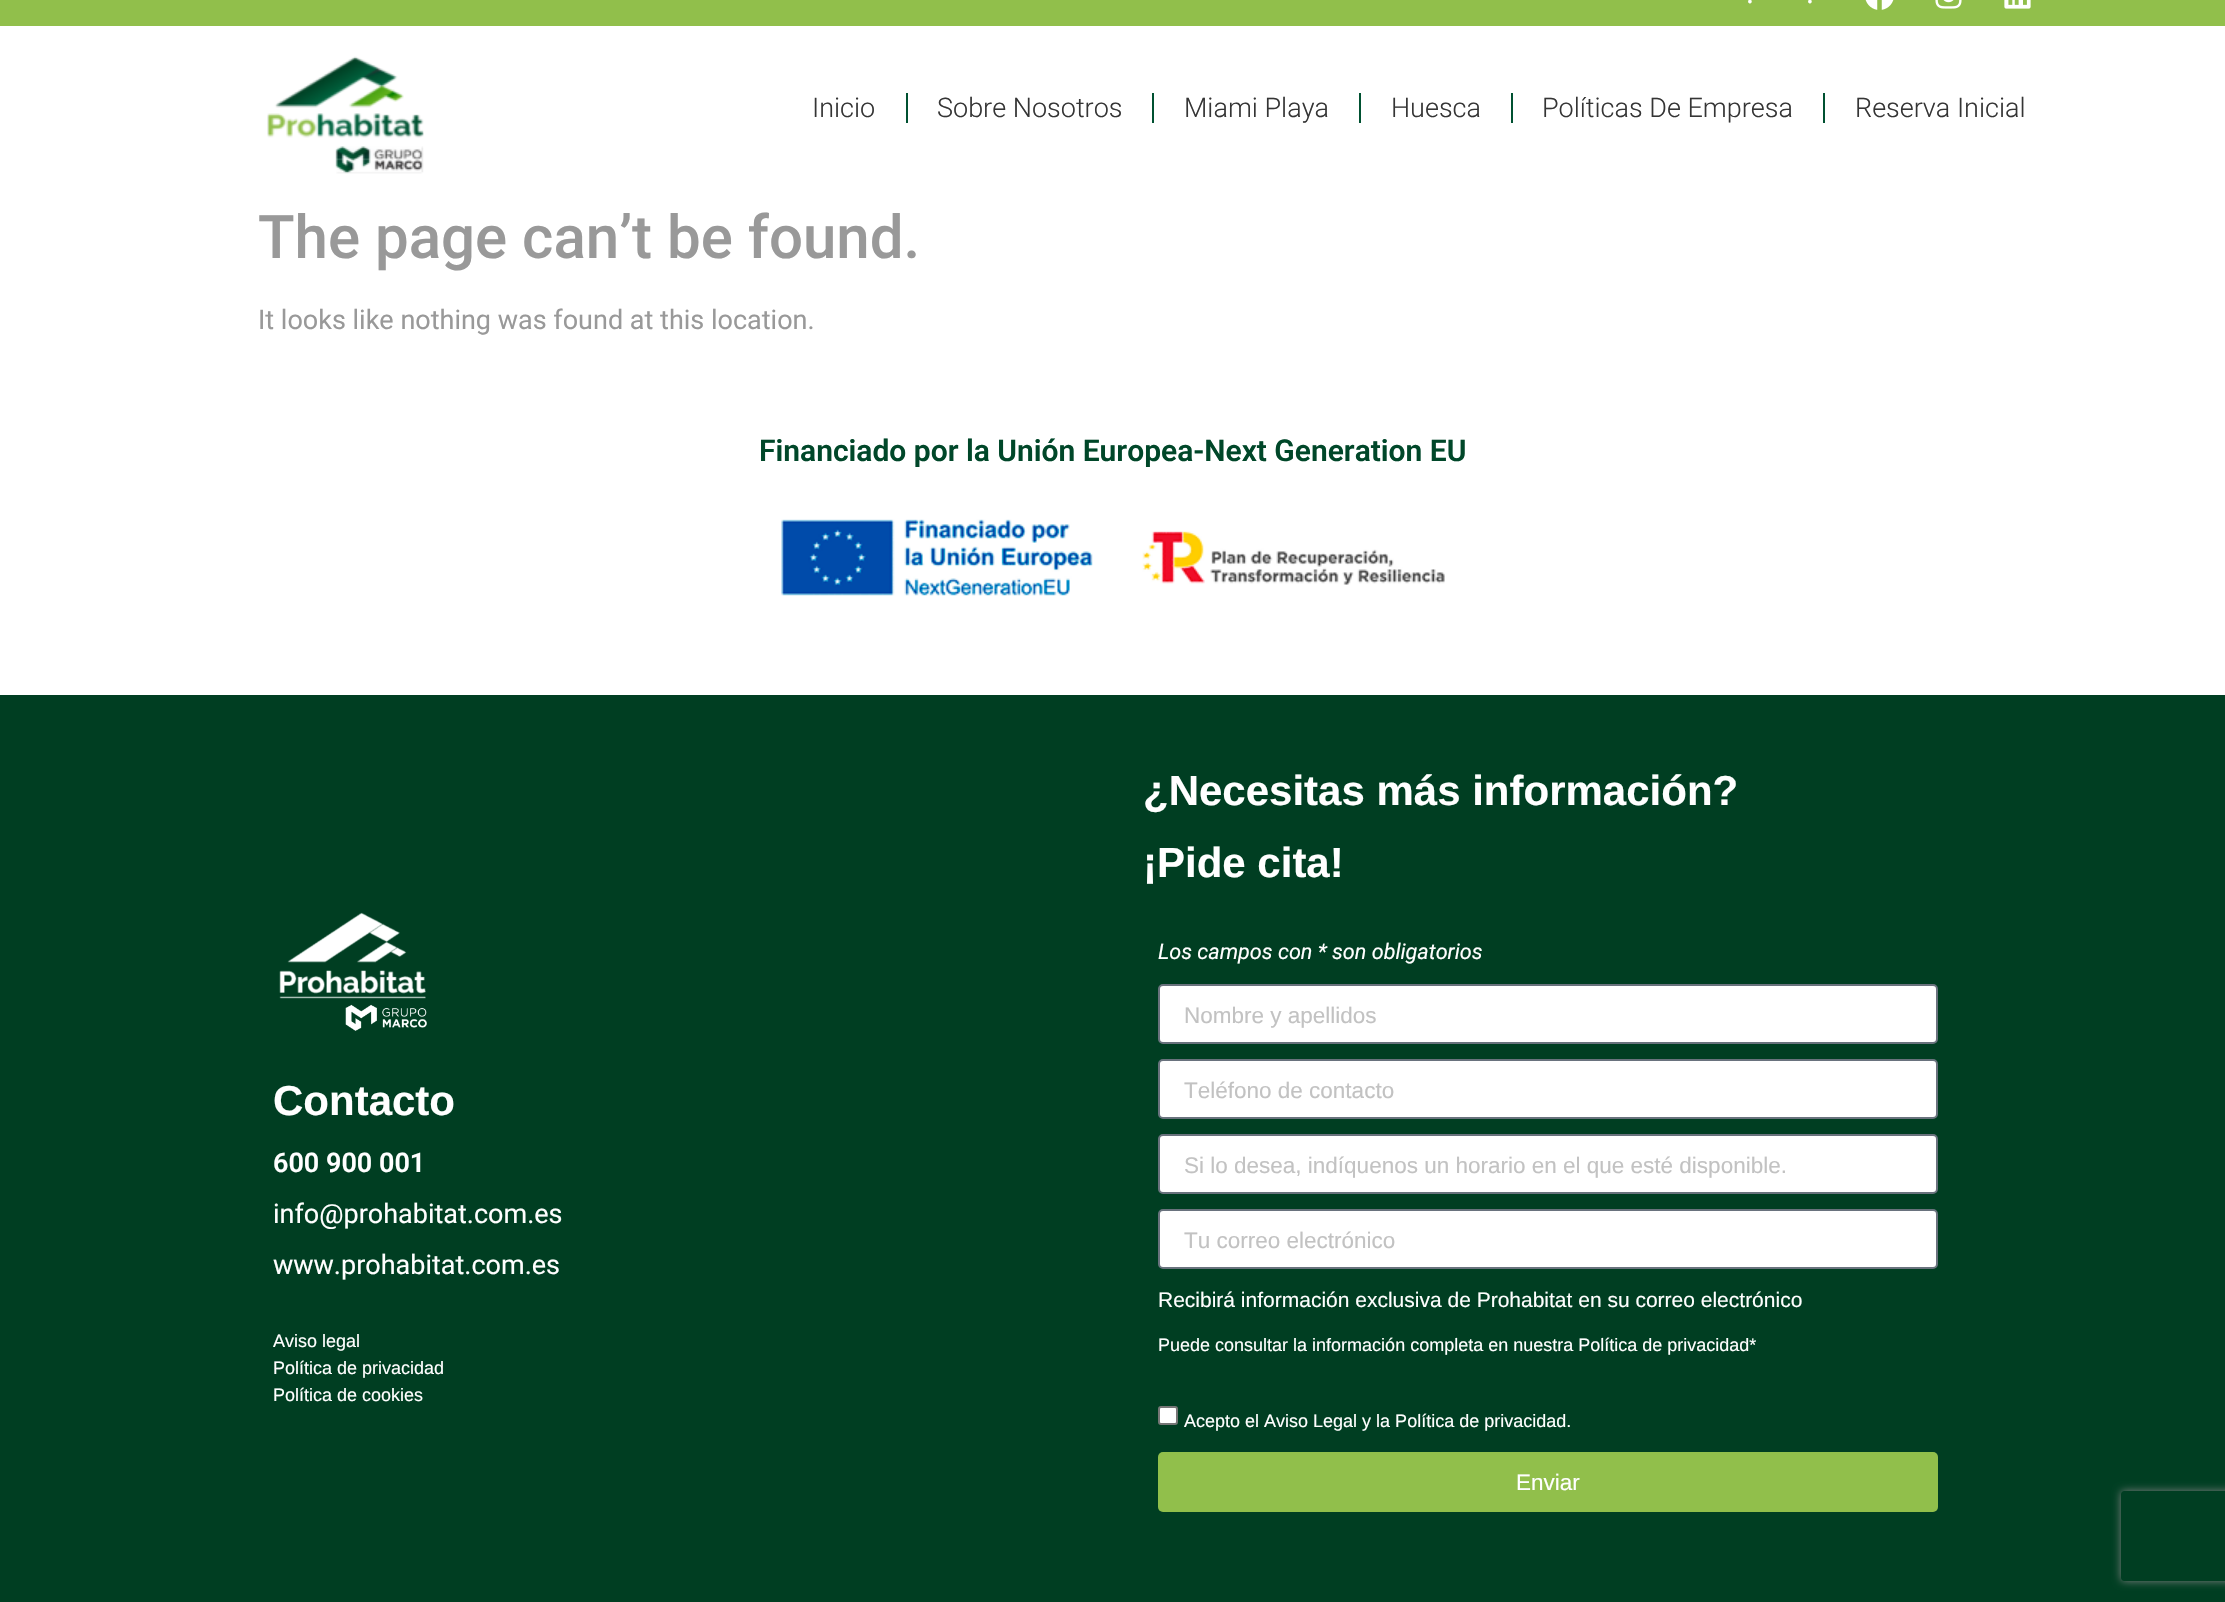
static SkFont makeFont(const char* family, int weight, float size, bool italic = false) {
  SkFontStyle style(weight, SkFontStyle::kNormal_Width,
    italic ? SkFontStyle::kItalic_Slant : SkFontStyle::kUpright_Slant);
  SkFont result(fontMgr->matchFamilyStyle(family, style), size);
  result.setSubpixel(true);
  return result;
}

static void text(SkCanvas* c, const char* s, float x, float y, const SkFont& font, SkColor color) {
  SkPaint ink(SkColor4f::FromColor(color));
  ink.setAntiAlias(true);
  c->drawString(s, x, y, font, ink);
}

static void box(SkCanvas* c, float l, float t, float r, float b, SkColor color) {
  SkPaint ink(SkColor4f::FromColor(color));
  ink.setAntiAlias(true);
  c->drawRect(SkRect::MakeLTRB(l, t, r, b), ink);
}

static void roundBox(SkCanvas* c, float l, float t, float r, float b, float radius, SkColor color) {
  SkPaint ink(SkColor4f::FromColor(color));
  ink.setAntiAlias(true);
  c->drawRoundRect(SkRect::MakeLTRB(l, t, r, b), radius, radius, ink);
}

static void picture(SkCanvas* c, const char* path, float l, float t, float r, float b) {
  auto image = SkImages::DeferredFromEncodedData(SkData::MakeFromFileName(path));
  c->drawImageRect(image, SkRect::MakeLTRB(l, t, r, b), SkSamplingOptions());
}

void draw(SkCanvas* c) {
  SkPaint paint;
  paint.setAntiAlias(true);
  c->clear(0xffffffff);
  box(c, 0, 0, 2225, 26, 0xff91bf4b);
  SkFont face1 = makeFont("Poppins", 500, 24);
  text(c, ".", 1747, 3, face1, 0xffffffff);
  text(c, ".", 1807, 3, face1, 0xffffffff);
  picture(c, "img_01.png", 1865, 0, 1894, 10);
  picture(c, "img_02.png", 1935, 0, 1962, 9);
  picture(c, "img_03.png", 2004, 0, 2031, 9);
  picture(c, "img_04.png", 267, 56, 424, 174);
  SkFont face2 = makeFont("Roboto", 300, 27);
  text(c, "Inicio", 812, 117, face2, 0xff353535);
  box(c, 906, 93, 908, 123, 0xff005131);
  text(c, "Sobre Nosotros", 937, 117, face2, 0xff353535);
  box(c, 1152, 93, 1154, 123, 0xff005131);
  text(c, "Miami Playa", 1184, 117, face2, 0xff353535);
  box(c, 1359, 93, 1361, 123, 0xff005131);
  text(c, "Huesca", 1391, 117, face2, 0xff353535);
  box(c, 1511, 93, 1513, 123, 0xff005131);
  text(c, "Políticas De Empresa", 1542, 117, face2, 0xff353535);
  box(c, 1823, 93, 1825, 123, 0xff005131);
  text(c, "Reserva Inicial", 1855, 117, face2, 0xff353535);
  SkFont face3 = makeFont("Roboto", 500, 60);
  text(c, "The page can’t be found.", 258, 258, face3, 0xff999999);
  SkFont face4 = makeFont("Roboto", 400, 27);
  text(c, "It looks like nothing was found at this location.", 258, 329, face4, 0xff999999);
  SkFont face5 = makeFont("Roboto", 600, 30);
  text(c, "Financiado por la Unión Europea-Next Generation EU", 759, 461, face5, 0xff004729);
  picture(c, "img_05.png", 781, 519, 1093, 596);
  picture(c, "img_06.png", 1142, 531, 1445, 585);
  box(c, 0, 695, 2225, 1602, 0xff003e22);
  picture(c, "img_07.png", 279, 912, 427, 1031);
  SkFont face6 = makeFont("Liberation Sans", 700, 42);
  text(c, "Contacto", 273, 1115, face6, 0xffffffff);
  SkFont face7 = makeFont("Roboto", 600, 27);
  text(c, "600 900 001", 273, 1172, face7, 0xffffffff);
  text(c, "info@prohabitat.com.es", 273, 1223, face4, 0xffffffff);
  text(c, "www.prohabitat.com.es", 273, 1274, face4, 0xffffffff);
  SkFont face8 = makeFont("Liberation Sans", 400, 18);
  text(c, "Aviso legal", 273, 1347, face8, 0xffffffff);
  text(c, "Política de privacidad", 273, 1374, face8, 0xffffffff);
  text(c, "Política de cookies", 273, 1401, face8, 0xffffffff);
  text(c, "¿Necesitas más información?", 1143, 805, face6, 0xffffffff);
  text(c, "¡Pide cita!", 1143, 877, face6, 0xffffffff);
  SkFont face9 = makeFont("Roboto", 400, 21.6f, true);
  text(c, "Los campos con * son obligatorios", 1158, 959, face9, 0xffffffff);
  paint.setColor(0xffffffff);
  c->drawRoundRect(SkRect::MakeLTRB(1159, 985, 1937, 1043), 4, 4, paint);
  paint.setStyle(SkPaint::kStroke_Style);
  paint.setStrokeWidth(2);
  paint.setColor(0xff69727d);
  c->drawRoundRect(SkRect::MakeLTRB(1159, 985, 1937, 1043), 4, 4, paint);
  SkFont face10 = makeFont("Liberation Sans", 400, 22.5f);
  text(c, "Nombre y apellidos", 1184, 1023, face10, 0xffc2c2c2);
  paint.setStyle(SkPaint::kFill_Style);
  paint.setColor(0xffffffff);
  c->drawRoundRect(SkRect::MakeLTRB(1159, 1060, 1937, 1118), 4, 4, paint);
  paint.setStyle(SkPaint::kStroke_Style);
  paint.setColor(0xff69727d);
  c->drawRoundRect(SkRect::MakeLTRB(1159, 1060, 1937, 1118), 4, 4, paint);
  text(c, "Teléfono de contacto", 1184, 1098, face10, 0xffc2c2c2);
  paint.setStyle(SkPaint::kFill_Style);
  paint.setColor(0xffffffff);
  c->drawRoundRect(SkRect::MakeLTRB(1159, 1135, 1937, 1193), 4, 4, paint);
  paint.setStyle(SkPaint::kStroke_Style);
  paint.setColor(0xff69727d);
  c->drawRoundRect(SkRect::MakeLTRB(1159, 1135, 1937, 1193), 4, 4, paint);
  text(c, "Si lo desea, indíquenos un horario en el que esté disponible.", 1184, 1173, face10, 0xffc2c2c2);
  paint.setStyle(SkPaint::kFill_Style);
  paint.setColor(0xffffffff);
  c->drawRoundRect(SkRect::MakeLTRB(1159, 1210, 1937, 1268), 4, 4, paint);
  paint.setStyle(SkPaint::kStroke_Style);
  paint.setColor(0xff69727d);
  c->drawRoundRect(SkRect::MakeLTRB(1159, 1210, 1937, 1268), 4, 4, paint);
  text(c, "Tu correo electrónico", 1184, 1248, face10, 0xffc2c2c2);
  SkFont face11 = makeFont("Liberation Sans", 400, 21);
  text(c, "Recibirá información exclusiva de Prohabitat en su correo electrónico", 1158, 1307, face11, 0xffffffff);
  text(c, "Puede consultar la información completa en nuestra Política de privacidad*", 1158, 1351, face8, 0xffffffff);
  paint.setStyle(SkPaint::kFill_Style);
  paint.setColor(0xffffffff);
  c->drawRoundRect(SkRect::MakeLTRB(1159, 1407, 1177, 1424), 2, 2, paint);
  paint.setStyle(SkPaint::kStroke_Style);
  paint.setColor(0xff767676);
  c->drawRoundRect(SkRect::MakeLTRB(1159, 1407, 1177, 1424), 2, 2, paint);
  text(c, "Acepto el Aviso Legal y la Política de privacidad.", 1184, 1427, face8, 0xffffffff);
  roundBox(c, 1158, 1452, 1938, 1512, 5, 0xff91bf4b);
  text(c, "Enviar", 1516, 1490, face10, 0xffffffff);
  c->save();
  c->clipPath(SkPathBuilder(SkPathFillType::kEvenOdd).moveTo(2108, 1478).lineTo(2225, 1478).lineTo(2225, 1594).lineTo(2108, 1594).close().moveTo(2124, 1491).lineTo(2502, 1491).cubicTo(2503.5f, 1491, 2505, 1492.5f, 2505, 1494).lineTo(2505, 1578).cubicTo(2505, 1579.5f, 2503.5f, 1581, 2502, 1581).lineTo(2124, 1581).cubicTo(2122.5f, 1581, 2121, 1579.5f, 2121, 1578).lineTo(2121, 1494).cubicTo(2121, 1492.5f, 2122.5f, 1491, 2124, 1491).close().detach(), true);
  paint.setStyle(SkPaint::kFill_Style);
  paint.setColor(0xff808080);
  paint.setMaskFilter(SkMaskFilter::MakeBlur(kNormal_SkBlurStyle, 4));
  c->drawRoundRect(SkRect::MakeLTRB(2121, 1491, 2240, 1581), 3, 3, paint);
  paint.setMaskFilter(nullptr);
  c->restore();
}
